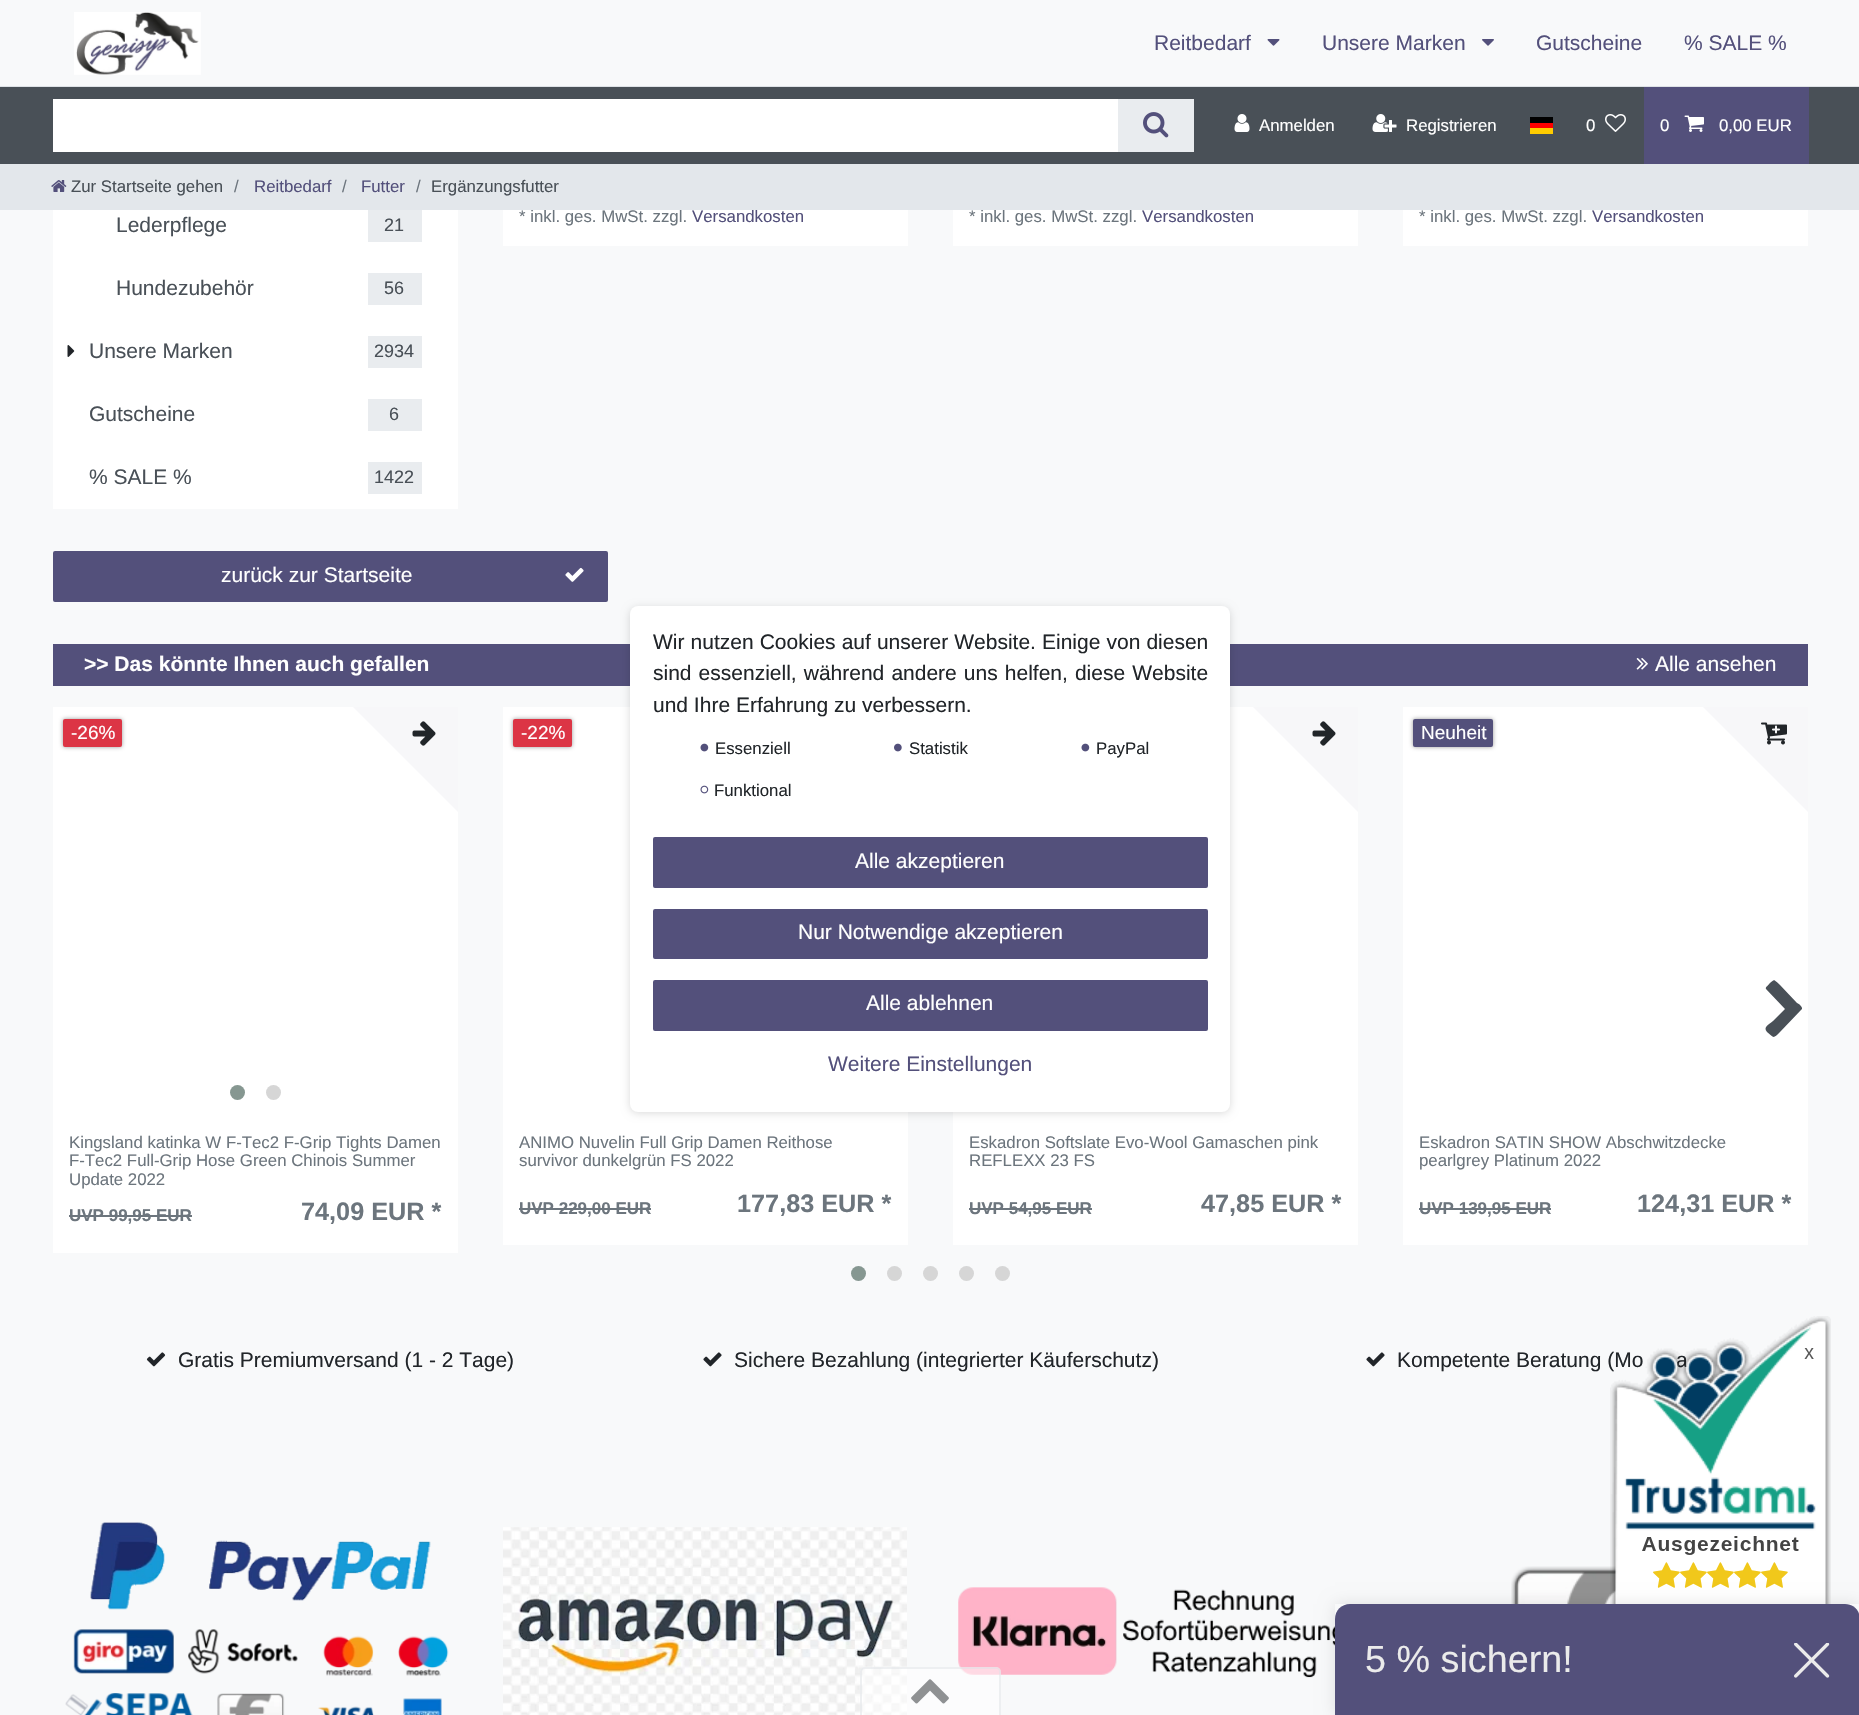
static SkFont makeFont(const char* family, int weight, float size, bool italic = false) {
  SkFontStyle style(weight, SkFontStyle::kNormal_Width,
    italic ? SkFontStyle::kItalic_Slant : SkFontStyle::kUpright_Slant);
  SkFont result(fontMgr->matchFamilyStyle(family, style), size);
  result.setSubpixel(true);
  return result;
}

static void text(SkCanvas* c, const char* s, float x, float y, const SkFont& font, SkColor color) {
  SkPaint ink(SkColor4f::FromColor(color));
  ink.setAntiAlias(true);
  c->drawString(s, x, y, font, ink);
}

static void spacedText(SkCanvas* c, const char* s, float x, float y, const SkFont& font, const SkPaint& ink, float letter, float word) {
  std::vector<SkGlyphID> glyphs(font.countText(s, strlen(s), SkTextEncoding::kUTF8));
  std::vector<float> xs(glyphs.size());
  font.textToGlyphs(s, strlen(s), SkTextEncoding::kUTF8, glyphs);
  font.getXPos(glyphs, xs, x);
  float extra = 0;
  for (size_t i = 0; i < glyphs.size(); i++) {
    xs[i] += extra;
    extra += letter + word * (glyphs[i] == font.unicharToGlyph(' '));
  }
  c->drawTextBlob(SkTextBlob::MakeFromPosHGlyphs(glyphs, xs, y, font), 0, 0, ink);
}

static void box(SkCanvas* c, float l, float t, float r, float b, SkColor color) {
  SkPaint ink(SkColor4f::FromColor(color));
  ink.setAntiAlias(true);
  c->drawRect(SkRect::MakeLTRB(l, t, r, b), ink);
}

static void roundBox(SkCanvas* c, float l, float t, float r, float b, float radius, SkColor color) {
  SkPaint ink(SkColor4f::FromColor(color));
  ink.setAntiAlias(true);
  c->drawRoundRect(SkRect::MakeLTRB(l, t, r, b), radius, radius, ink);
}

static void picture(SkCanvas* c, const char* path, float l, float t, float r, float b) {
  auto image = SkImages::DeferredFromEncodedData(SkData::MakeFromFileName(path));
  c->drawImageRect(image, SkRect::MakeLTRB(l, t, r, b), SkSamplingOptions());
}

void draw(SkCanvas* c) {
  SkPaint paint;
  paint.setAntiAlias(true);
  c->clear(0xfff8f9fa);
  box(c, 0, 86, 1859, 87, 0xffdee2e6);
  picture(c, "img_01.png", 74, 12, 201, 75);
  SkFont face1 = makeFont("Liberation Sans", 400, 21);
  text(c, "Reitbedarf", 1154, 50, face1, 0xff53507b);
  picture(c, "img_02.png", 1267, 39, 1280, 46);
  text(c, "Unsere Marken", 1322, 50, face1, 0xff53507b);
  picture(c, "img_03.png", 1482, 39, 1494, 46);
  text(c, "Gutscheine", 1536, 50, face1, 0xff53507b);
  text(c, "% SALE %", 1684, 50, face1, 0xff53507b);
  box(c, 0, 87, 1859, 164, 0xff495057);
  box(c, 53, 99, 1118, 152, 0xffffffff);
  box(c, 1118, 99, 1194, 152, 0xffe9ecef);
  picture(c, "img_04.png", 1143, 112, 1169, 138);
  picture(c, "img_05.png", 1234, 114, 1250, 132);
  SkFont face2 = makeFont("Liberation Sans", 400, 16.8f);
  text(c, "Anmelden", 1259, 131, face2, 0xffffffff);
  picture(c, "img_06.png", 1372, 114, 1397, 132);
  text(c, "Registrieren", 1406, 131, face2, 0xffffffff);
  box(c, 1530, 128, 1553, 134, 0xffffcc00);
  box(c, 1530, 117, 1553, 123, 0xff000000);
  box(c, 1530, 123, 1553, 128, 0xffff0000);
  text(c, "0", 1586, 131, face2, 0xffffffff);
  picture(c, "img_07.png", 1605, 114, 1626, 132);
  box(c, 1644, 87, 1809, 164, 0xff53507b);
  text(c, "0", 1660, 131, face2, 0xffffffff);
  picture(c, "img_08.png", 1684, 115, 1704, 132);
  text(c, "0,00 EUR", 1719, 131, face2, 0xffffffff);
  box(c, 503, 210, 908, 246, 0xffffffff);
  text(c, "* inkl. ges. MwSt. zzgl.", 519, 222, face2, 0xff6c757d);
  text(c, "Versandkosten", 692, 222, face2, 0xff53507b);
  box(c, 953, 210, 1358, 246, 0xffffffff);
  text(c, "* inkl. ges. MwSt. zzgl.", 969, 222, face2, 0xff6c757d);
  text(c, "Versandkosten", 1142, 222, face2, 0xff53507b);
  box(c, 1403, 210, 1808, 246, 0xffffffff);
  text(c, "* inkl. ges. MwSt. zzgl.", 1419, 222, face2, 0xff6c757d);
  text(c, "Versandkosten", 1592, 222, face2, 0xff53507b);
  box(c, 0, 164, 1859, 210, 0xffe3e7eb);
  picture(c, "img_09.png", 51, 180, 67, 192);
  text(c, "Zur Startseite gehen", 71, 192, face2, 0xff495057);
  text(c, "/", 234, 192, face2, 0xff6c757d);
  text(c, "Reitbedarf", 254, 192, face2, 0xff53507b);
  text(c, "/", 342, 192, face2, 0xff6c757d);
  text(c, "Futter", 361, 192, face2, 0xff53507b);
  text(c, "/", 416, 192, face2, 0xff6c757d);
  text(c, "Ergänzungsfutter", 431, 192, face2, 0xff495057);
  box(c, 53, 210, 458, 509, 0xffffffff);
  text(c, "Lederpflege", 116, 232, face1, 0xff495057);
  box(c, 368, 210, 422, 242, 0xffe9ecef);
  SkFont face3 = makeFont("Liberation Sans", 400, 18);
  text(c, "21", 384, 231, face3, 0xff495057);
  text(c, "Hundezubehör", 116, 295, face1, 0xff495057);
  box(c, 368, 273, 422, 305, 0xffe9ecef);
  text(c, "56", 384, 294, face3, 0xff495057);
  picture(c, "img_10.png", 67, 345, 75, 357);
  text(c, "Unsere Marken", 89, 358, face1, 0xff495057);
  box(c, 368, 336, 422, 368, 0xffe9ecef);
  text(c, "2934", 374, 357, face3, 0xff495057);
  text(c, "Gutscheine", 89, 421, face1, 0xff495057);
  box(c, 368, 399, 422, 431, 0xffe9ecef);
  text(c, "6", 389, 420, face3, 0xff495057);
  text(c, "% SALE %", 89, 484, face1, 0xff495057);
  box(c, 368, 462, 422, 494, 0xffe9ecef);
  text(c, "1422", 374, 483, face3, 0xff495057);
  paint.setColor(0xff53507b);
  c->drawRoundRect(SkRect::MakeLTRB(54, 552, 607, 601), 1, 1, paint);
  paint.setStyle(SkPaint::kStroke_Style);
  paint.setStrokeWidth(2);
  c->drawRoundRect(SkRect::MakeLTRB(54, 552, 607, 601), 1, 1, paint);
  text(c, "zurück zur Startseite", 221, 582, face1, 0xffffffff);
  picture(c, "img_11.png", 565, 567, 584, 582);
  box(c, 53, 644, 1808, 686, 0xff53507b);
  SkFont face4 = makeFont("Liberation Sans", 700, 21);
  text(c, ">> Das könnte Ihnen auch gefallen", 84, 671, face4, 0xffffffff);
  picture(c, "img_12.png", 1636, 658, 1648, 670);
  text(c, "Alle ansehen", 1655, 671, face1, 0xffffffff);
  box(c, 53, 707, 458, 1253, 0xffffffff);
  paint.setStyle(SkPaint::kFill_Style);
  paint.setColor(0x66000000);
  paint.setMaskFilter(SkMaskFilter::MakeBlur(kNormal_SkBlurStyle, 2));
  c->drawRoundRect(SkRect::MakeLTRB(63, 719, 122, 747), 2, 2, paint);
  paint.setMaskFilter(nullptr);
  roundBox(c, 63, 719, 122, 747, 2, 0xffdc3545);
  SkFont face5 = makeFont("Liberation Sans", 400, 19);
  text(c, "-26%", 71, 739, face5, 0xffffffff);
  c->save();
  c->clipRect(SkRect::MakeLTRB(53, 707, 458, 1253));
  paint.setColor(0xfff7f7f9);
  c->drawPath(SkPathBuilder().moveTo(458, 706).lineTo(458, 812).lineTo(352, 706).close().detach(), paint);
  c->restore();
  picture(c, "img_13.png", 412, 721, 436, 746);
  paint.setColor(0xff869791);
  c->drawCircle(237.5f, 1092.5f, 7.5f, paint);
  paint.setColor(0xffd6d6d6);
  c->drawCircle(273.5f, 1092.5f, 7.5f, paint);
  text(c, "Kingsland katinka W F-Tec2 F-Grip Tights Damen", 69, 1148, face2, 0xff6c757d);
  text(c, "F-Tec2 Full-Grip Hose Green Chinois Summer", 69, 1166, face2, 0xff6c757d);
  text(c, "Update 2022", 69, 1185, face2, 0xff6c757d);
  SkFont face6 = makeFont("Liberation Sans", 700, 17);
  text(c, "UVP 99,95 EUR", 69, 1221, face6, 0xff6c757d);
  box(c, 69, 1215, 192, 1217, 0xff6c757d);
  SkFont face7 = makeFont("Liberation Sans", 700, 25.25f);
  text(c, "74,09 EUR *", 301, 1220, face7, 0xff6c757d);
  box(c, 503, 707, 908, 1245, 0xffffffff);
  paint.setColor(0x66000000);
  paint.setMaskFilter(SkMaskFilter::MakeBlur(kNormal_SkBlurStyle, 2));
  c->drawRoundRect(SkRect::MakeLTRB(513, 719, 572, 747), 2, 2, paint);
  paint.setMaskFilter(nullptr);
  roundBox(c, 513, 719, 572, 747, 2, 0xffdc3545);
  text(c, "-22%", 521, 739, face5, 0xffffffff);
  text(c, "ANIMO Nuvelin Full Grip Damen Reithose", 519, 1148, face2, 0xff6c757d);
  text(c, "survivor dunkelgrün FS 2022", 519, 1166, face2, 0xff6c757d);
  text(c, "UVP 229,00 EUR", 519, 1214, face6, 0xff6c757d);
  box(c, 519, 1208, 651, 1210, 0xff6c757d);
  text(c, "177,83 EUR *", 737, 1212, face7, 0xff6c757d);
  box(c, 953, 707, 1358, 1245, 0xffffffff);
  c->save();
  c->clipRect(SkRect::MakeLTRB(953, 707, 1358, 1245));
  paint.setColor(0xfff7f7f9);
  c->drawPath(SkPathBuilder().moveTo(1358, 706).lineTo(1358, 812).lineTo(1252, 706).close().detach(), paint);
  c->restore();
  picture(c, "img_13.png", 1312, 721, 1336, 746);
  text(c, "Eskadron Softslate Evo-Wool Gamaschen pink", 969, 1148, face2, 0xff6c757d);
  text(c, "REFLEXX 23 FS", 969, 1166, face2, 0xff6c757d);
  text(c, "UVP 54,95 EUR", 969, 1214, face6, 0xff6c757d);
  box(c, 969, 1208, 1092, 1210, 0xff6c757d);
  text(c, "47,85 EUR *", 1201, 1212, face7, 0xff6c757d);
  box(c, 1403, 707, 1808, 1245, 0xffffffff);
  paint.setColor(0x66000000);
  paint.setMaskFilter(SkMaskFilter::MakeBlur(kNormal_SkBlurStyle, 2));
  c->drawRoundRect(SkRect::MakeLTRB(1413, 719, 1493, 747), 2, 2, paint);
  paint.setMaskFilter(nullptr);
  roundBox(c, 1413, 719, 1493, 747, 2, 0xff53507b);
  text(c, "Neuheit", 1421, 739, face5, 0xffffffff);
  c->save();
  c->clipRect(SkRect::MakeLTRB(1403, 707, 1808, 1245));
  paint.setColor(0xfff7f7f9);
  c->drawPath(SkPathBuilder().moveTo(1808, 706).lineTo(1808, 812).lineTo(1702, 706).close().detach(), paint);
  c->restore();
  picture(c, "img_14.png", 1761, 722, 1787, 745);
  text(c, "Eskadron SATIN SHOW Abschwitzdecke", 1419, 1148, face2, 0xff6c757d);
  text(c, "pearlgrey Platinum 2022", 1419, 1166, face2, 0xff6c757d);
  text(c, "UVP 139,95 EUR", 1419, 1214, face6, 0xff6c757d);
  box(c, 1419, 1208, 1551, 1210, 0xff6c757d);
  text(c, "124,31 EUR *", 1637, 1212, face7, 0xff6c757d);
  paint.setColor(0xff495057);
  c->drawPath(SkPathBuilder().moveTo(1801, 1010).lineTo(1780, 1032).cubicTo(1773, 1039, 1774, 1038, 1767, 1032).cubicTo(1763, 1027, 1768, 1025, 1773, 1021).lineTo(1785, 1009).lineTo(1766, 989).cubicTo(1765, 987, 1768, 986, 1769, 984).cubicTo(1775, 979, 1773, 979, 1780, 985).lineTo(1797, 1003).cubicTo(1798, 1003, 1803, 1007, 1802, 1009).close().detach(), paint);
  paint.setColor(0xff869791);
  c->drawCircle(858.5f, 1273.5f, 7.5f, paint);
  paint.setColor(0xffd6d6d6);
  c->drawCircle(894.5f, 1273.5f, 7.5f, paint);
  c->drawCircle(930.5f, 1273.5f, 7.5f, paint);
  c->drawCircle(966.5f, 1273.5f, 7.5f, paint);
  c->drawCircle(1002.5f, 1273.5f, 7.5f, paint);
  picture(c, "img_15.png", 146, 1352, 166, 1367);
  text(c, "Gratis Premiumversand (1 - 2 Tage)", 178, 1367, face1, 0xff212529);
  picture(c, "img_16.png", 703, 1352, 722, 1367);
  text(c, "Sichere Bezahlung (integrierter Käuferschutz)", 734, 1367, face1, 0xff212529);
  picture(c, "img_16.png", 1366, 1352, 1385, 1367);
  text(c, "Kompetente Beratung (Mo", 1397, 1367, face1, 0xff212529);
  text(c, "a", 1676, 1367, face1, 0xff212529);
  picture(c, "img_17.png", 65, 1522, 449, 1715);
  picture(c, "img_18.png", 503, 1527, 907, 1715);
  picture(c, "img_19.png", 958, 1587, 1335, 1678);
  picture(c, "img_20.png", 1511, 1566, 1618, 1604);
  roundBox(c, 860, 1667, 1001, 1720, 5, 0x80ffffff);
  paint.setStyle(SkPaint::kStroke_Style);
  paint.setColor(0x80dee2e6);
  c->drawRoundRect(SkRect::MakeLTRB(861, 1668, 1000, 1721), 4, 4, paint);
  picture(c, "img_21.png", 911, 1679, 949, 1704);
  paint.setStyle(SkPaint::kFill_Style);
  paint.setColor(0x26000000);
  paint.setMaskFilter(SkMaskFilter::MakeBlur(kNormal_SkBlurStyle, 4));
  c->drawRoundRect(SkRect::MakeLTRB(630, 608, 1230, 1113), 8, 8, paint);
  paint.setMaskFilter(nullptr);
  roundBox(c, 630, 606, 1230, 1112, 8, 0xffffffff);
  paint.setColor(0xff212529);
  spacedText(c, "Wir nutzen Cookies auf unserer Website. Einige von diesen", 653, 649, face1, paint, 0, 0.25f);
  spacedText(c, "sind essenziell, während andere uns helfen, diese Website", 653, 680, face1, paint, 0, 1.25f);
  text(c, "und Ihre Erfahrung zu verbessern.", 653, 712, face1, 0xff212529);
  picture(c, "img_22.png", 700, 743, 709, 752);
  text(c, "Essenziell", 715, 754, face2, 0xff212529);
  picture(c, "img_23.png", 894, 743, 902, 752);
  text(c, "Statistik", 909, 754, face2, 0xff212529);
  picture(c, "img_22.png", 1081, 743, 1090, 752);
  text(c, "PayPal", 1096, 754, face2, 0xff212529);
  picture(c, "img_24.png", 700, 785, 709, 794);
  text(c, "Funktional", 714, 796, face2, 0xff212529);
  paint.setColor(0xff53507b);
  c->drawRoundRect(SkRect::MakeLTRB(654, 838, 1207, 887), 1, 1, paint);
  paint.setStyle(SkPaint::kStroke_Style);
  c->drawRoundRect(SkRect::MakeLTRB(654, 838, 1207, 887), 1, 1, paint);
  text(c, "Alle akzeptieren", 855, 868, face1, 0xffffffff);
  paint.setStyle(SkPaint::kFill_Style);
  c->drawRoundRect(SkRect::MakeLTRB(654, 910, 1207, 958), 1, 1, paint);
  paint.setStyle(SkPaint::kStroke_Style);
  c->drawRoundRect(SkRect::MakeLTRB(654, 910, 1207, 958), 1, 1, paint);
  text(c, "Nur Notwendige akzeptieren", 798, 939, face1, 0xffffffff);
  paint.setStyle(SkPaint::kFill_Style);
  c->drawRoundRect(SkRect::MakeLTRB(654, 981, 1207, 1030), 1, 1, paint);
  paint.setStyle(SkPaint::kStroke_Style);
  c->drawRoundRect(SkRect::MakeLTRB(654, 981, 1207, 1030), 1, 1, paint);
  text(c, "Alle ablehnen", 866, 1010, face1, 0xffffffff);
  text(c, "Weitere Einstellungen", 828, 1071, face1, 0xff53507b);
  picture(c, "img_25.png", 1610, 1316, 1831, 1604);
  c->save();
  c->clipPath(SkPathBuilder(SkPathFillType::kEvenOdd).moveTo(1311, 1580).lineTo(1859, 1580).lineTo(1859, 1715).lineTo(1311, 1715).close().moveTo(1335, 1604).lineTo(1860, 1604).lineTo(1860, 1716).lineTo(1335, 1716).close().detach(), true);
  paint.setStyle(SkPaint::kFill_Style);
  paint.setColor(0x1a000000);
  paint.setMaskFilter(SkMaskFilter::MakeBlur(kNormal_SkBlurStyle, 7.5f));
  c->drawRect(SkRect::MakeLTRB(1335, 1604, 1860, 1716), paint);
  paint.setMaskFilter(nullptr);
  c->restore();
  paint.setColor(0xff53507b);
  c->drawPath(SkPathBuilder().moveTo(1350, 1604).lineTo(1845, 1604).cubicTo(1853.5f, 1604, 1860, 1610.5f, 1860, 1619).lineTo(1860, 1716).lineTo(1335, 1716).lineTo(1335, 1619).cubicTo(1335, 1610.5f, 1341.5f, 1604, 1350, 1604).close().detach(), paint);
  SkFont face8 = makeFont("Liberation Sans", 400, 37.75f);
  text(c, "5 % sichern!", 1365, 1672, face8, 0xffebebeb);
  picture(c, "img_26.png", 1794, 1643, 1830, 1678);
}
